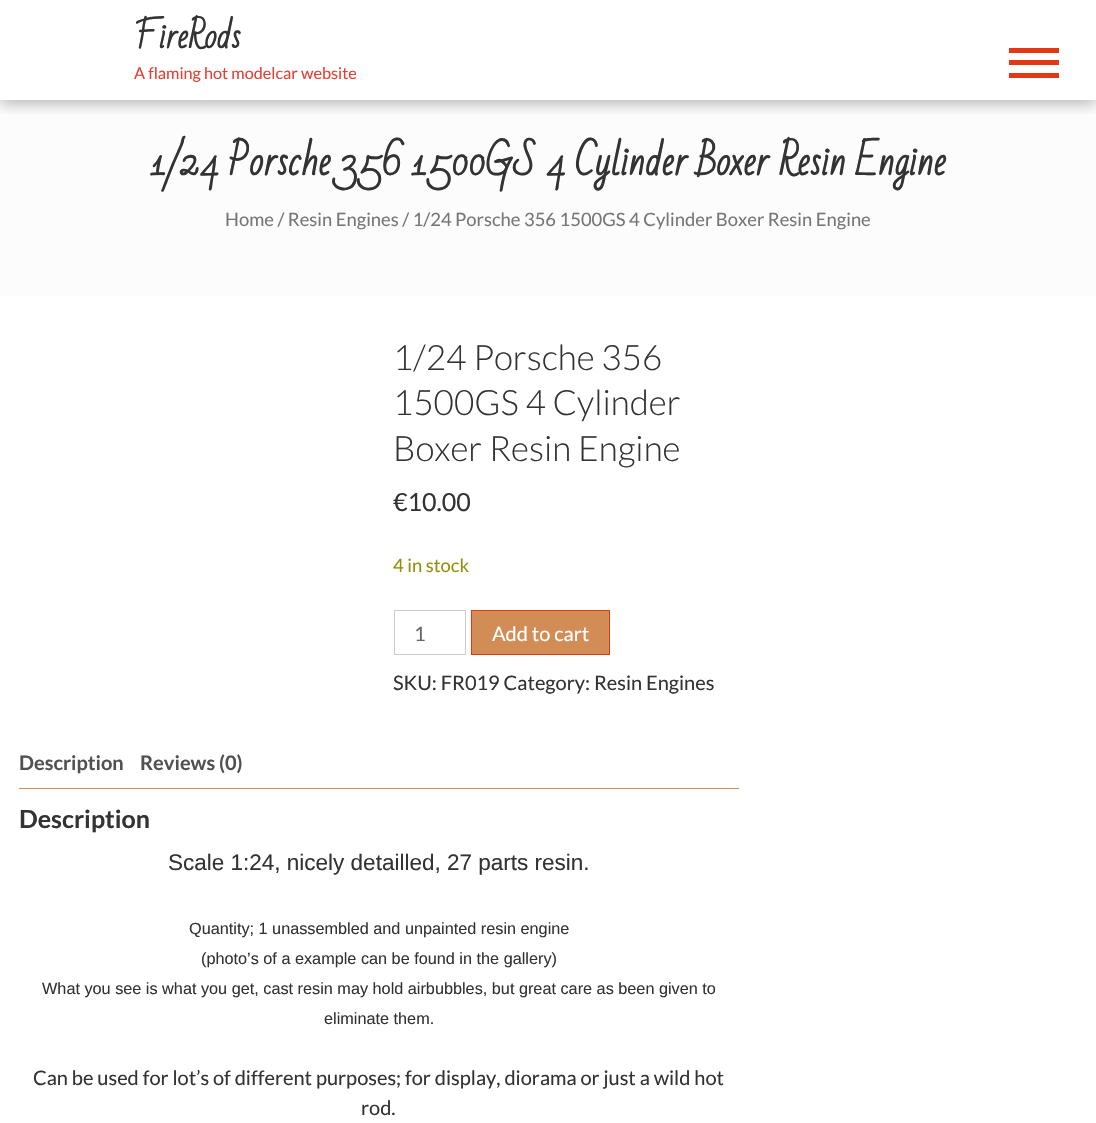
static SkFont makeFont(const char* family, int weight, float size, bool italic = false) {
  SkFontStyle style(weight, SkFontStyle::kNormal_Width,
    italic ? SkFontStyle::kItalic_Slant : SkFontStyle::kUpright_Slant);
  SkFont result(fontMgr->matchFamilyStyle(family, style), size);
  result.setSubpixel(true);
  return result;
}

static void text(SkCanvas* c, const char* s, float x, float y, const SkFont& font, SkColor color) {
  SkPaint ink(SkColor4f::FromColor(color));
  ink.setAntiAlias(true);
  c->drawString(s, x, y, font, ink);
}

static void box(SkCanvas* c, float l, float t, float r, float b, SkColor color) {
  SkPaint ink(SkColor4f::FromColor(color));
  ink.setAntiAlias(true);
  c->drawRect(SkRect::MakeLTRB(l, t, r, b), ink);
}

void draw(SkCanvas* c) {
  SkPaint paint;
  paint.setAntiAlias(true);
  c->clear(0xffffffff);
  box(c, 0, 100, 1096, 296, 0xfffcfcfc);
  c->save();
  c->clipRect(SkRect::MakeLTRB(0, 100, 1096, 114));
  paint.setColor(0x4d000000);
  paint.setMaskFilter(SkMaskFilter::MakeBlur(kNormal_SkBlurStyle, 7.5f));
  c->drawRect(SkRect::MakeLTRB(0, 3, 1096, 103), paint);
  paint.setMaskFilter(nullptr);
  c->restore();
  SkFont face1 = makeFont("Bad Script", 700, 32.5f);
  text(c, "FireRods", 134, 48, face1, 0xff333333);
  SkFont face2 = makeFont("Lato", 400, 16.25f);
  text(c, "A flaming hot modelcar website", 134, 79, face2, 0xffe54034);
  box(c, 1009, 48, 1059, 53, 0xffe23815);
  box(c, 1009, 73, 1059, 78, 0xffe23815);
  box(c, 1009, 60, 1059, 65, 0xffe23815);
  SkFont face3 = makeFont("Bad Script", 700, 37.5f);
  text(c, "1/24 Porsche 356 1500GS 4 Cylinder Boxer Resin Engine", 151, 175, face3, 0xff333333);
  SkFont face4 = makeFont("Lato", 400, 18.4f);
  text(c, "Home / Resin Engines / 1/24 Porsche 356 1500GS 4 Cylinder Boxer Resin Engine", 225, 226, face4, 0xff767676);
  SkFont face5 = makeFont("Lato", 300, 35);
  text(c, "1/24 Porsche 356", 393, 370, face5, 0xff333333);
  text(c, "1500GS 4 Cylinder", 393, 415, face5, 0xff333333);
  text(c, "Boxer Resin Engine", 393, 461, face5, 0xff333333);
  SkFont face6 = makeFont("Lato", 400, 25);
  text(c, "€10.00", 393, 511, face6, 0xff333333);
  text(c, "4 in stock", 393, 572, face4, 0xff958e09);
  paint.setStyle(SkPaint::kStroke_Style);
  paint.setStrokeWidth(1);
  paint.setColor(0xffcccccc);
  c->drawRect(SkRect::MakeLTRB(394.5f, 610.5f, 465.5f, 654.5f), paint);
  SkFont face7 = makeFont("Lato", 400, 20);
  text(c, "1", 414, 641, face7, 0xff666666);
  paint.setStyle(SkPaint::kFill_Style);
  paint.setColor(0xffd28d56);
  c->drawRect(SkRect::MakeLTRB(471.5f, 610.5f, 609.5f, 654.5f), paint);
  paint.setStyle(SkPaint::kStroke_Style);
  paint.setColor(0xffe23815);
  c->drawRect(SkRect::MakeLTRB(471.5f, 610.5f, 609.5f, 654.5f), paint);
  text(c, "Add to cart", 492, 641, face7, 0xffffffff);
  text(c, "SKU: FR019 Category: Resin Engines", 393, 690, face7, 0xff333333);
  SkFont face8 = makeFont("Lato", 700, 20);
  text(c, "Description", 19, 770, face8, 0xff515151);
  text(c, "Reviews (0)", 140, 770, face8, 0xff515151);
  box(c, 19, 788, 739, 789, 0xffd28d56);
  SkFont face9 = makeFont("Lato", 700, 25);
  text(c, "Description", 19, 828, face9, 0xff333333);
  SkFont face10 = makeFont("Liberation Sans", 400, 22.5f);
  text(c, "Scale 1:24, nicely detailled, 27 parts resin.", 168, 870, face10, 0xff333333);
  SkFont face11 = makeFont("Liberation Sans", 400, 16.25f);
  text(c, "Quantity; 1 unassembled and unpainted resin engine", 189, 934, face11, 0xff333333);
  text(c, "(photo’s of a example can be found in the gallery)", 201, 964, face11, 0xff333333);
  text(c, "What you see is what you get, cast resin may hold airbubbles, but great care as been given to", 42, 994, face11, 0xff333333);
  text(c, "eliminate them.", 324, 1024, face11, 0xff333333);
  text(c, "Can be used for lot’s of different purposes; for display, diorama or just a wild hot", 33, 1085, face7, 0xff333333);
  text(c, "rod.", 361, 1115, face7, 0xff333333);
}
